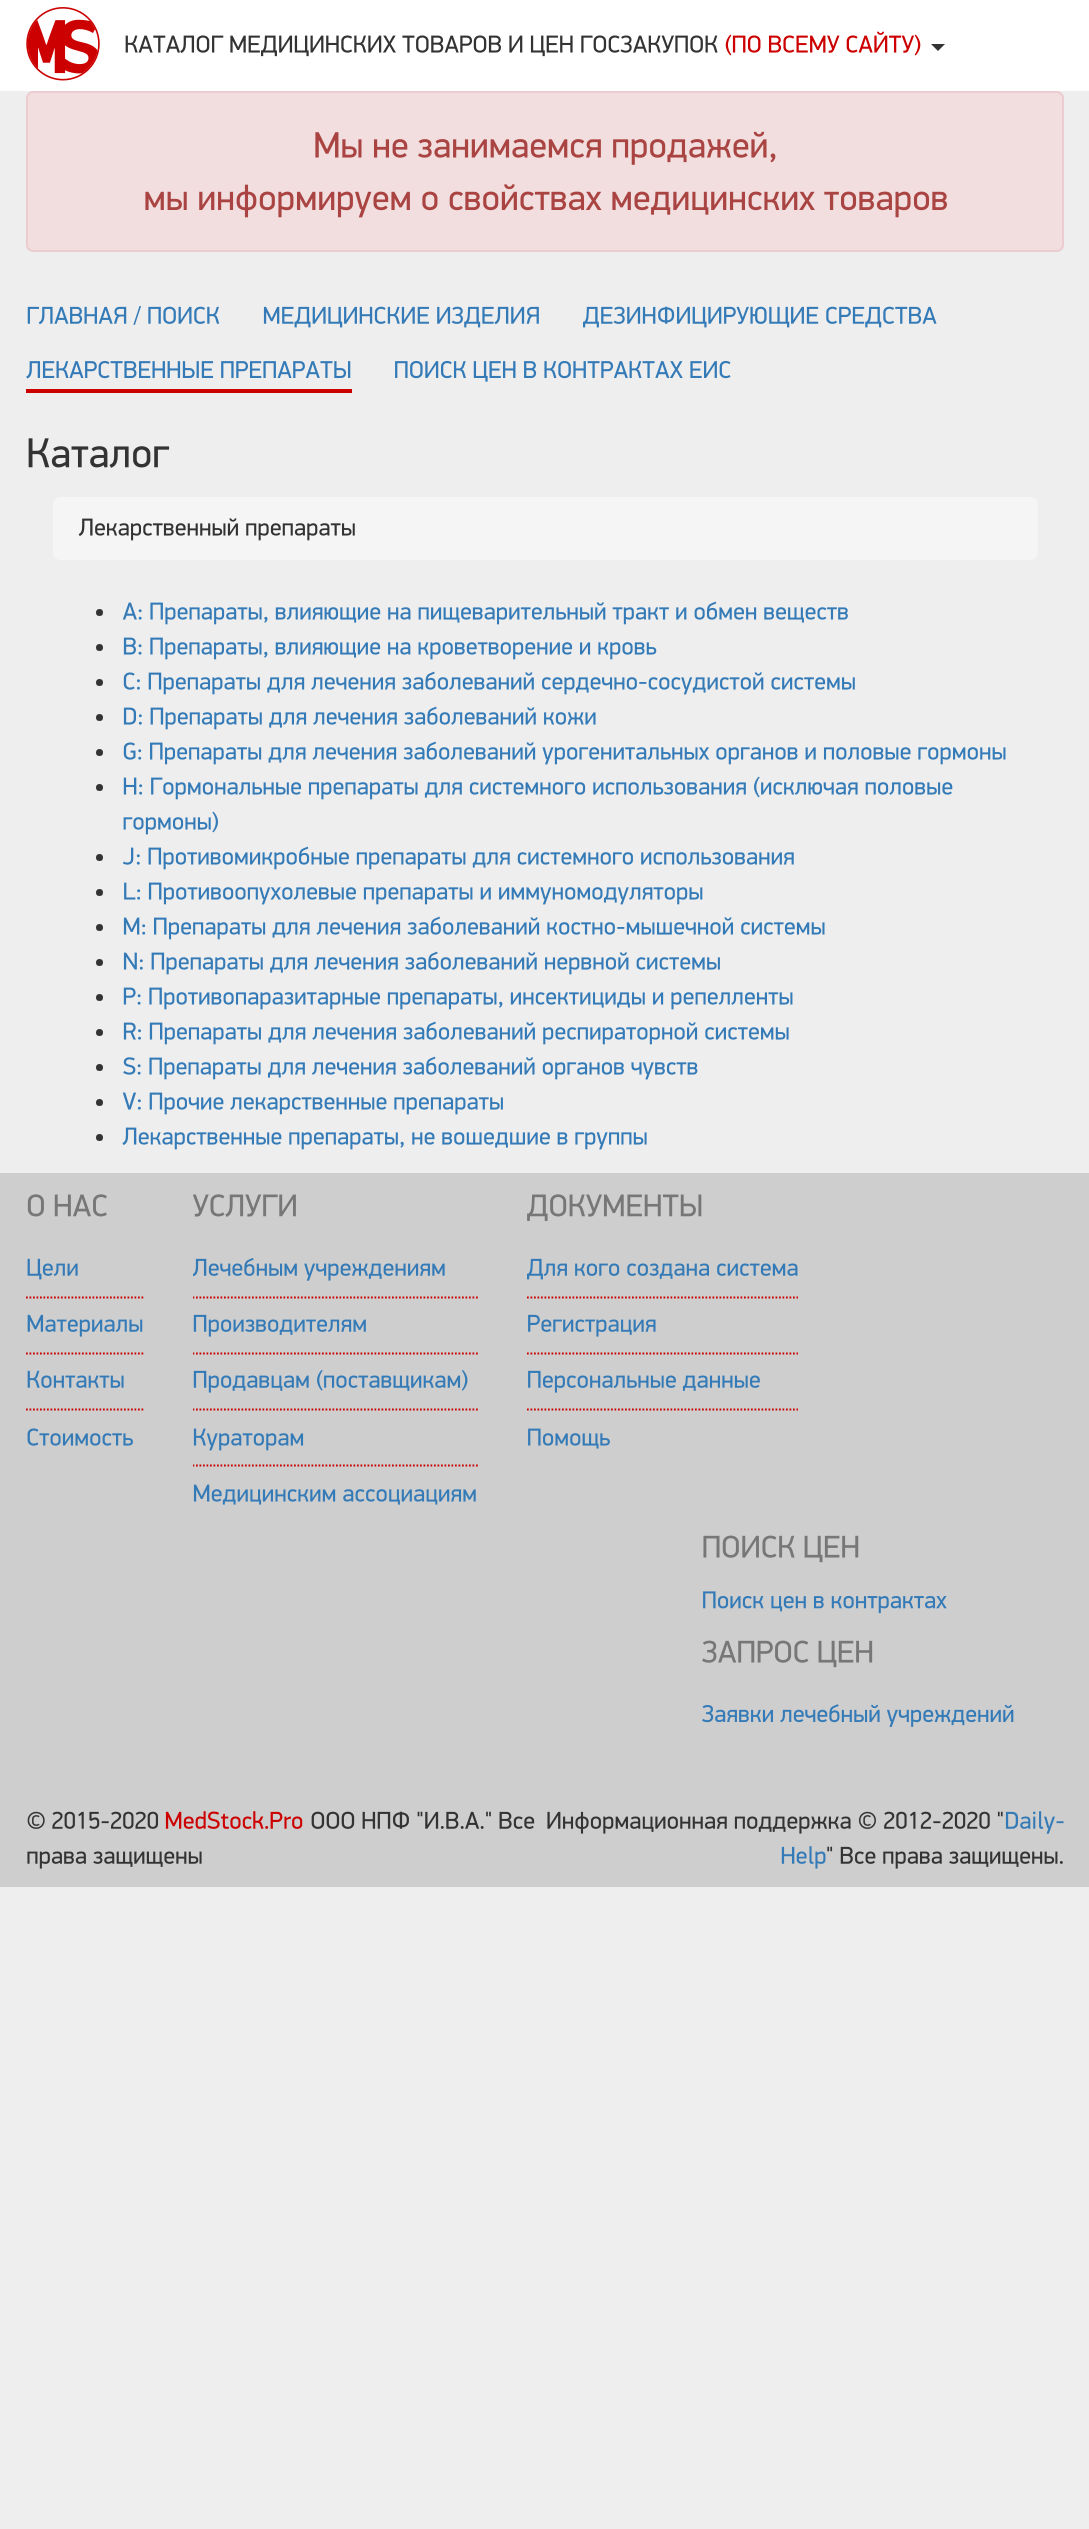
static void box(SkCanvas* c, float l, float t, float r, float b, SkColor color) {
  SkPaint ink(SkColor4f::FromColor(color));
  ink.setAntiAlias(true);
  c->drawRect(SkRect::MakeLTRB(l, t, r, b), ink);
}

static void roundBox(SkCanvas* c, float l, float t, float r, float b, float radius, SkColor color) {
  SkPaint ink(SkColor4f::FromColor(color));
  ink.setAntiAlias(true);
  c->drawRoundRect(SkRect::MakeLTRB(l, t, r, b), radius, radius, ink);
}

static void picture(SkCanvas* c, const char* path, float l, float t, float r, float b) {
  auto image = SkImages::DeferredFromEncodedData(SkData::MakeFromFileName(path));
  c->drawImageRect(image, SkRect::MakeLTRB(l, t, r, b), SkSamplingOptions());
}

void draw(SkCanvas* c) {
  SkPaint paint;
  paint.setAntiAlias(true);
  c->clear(0xffeeeeee);
  box(c, 0, 0, 1089, 91, 0xffffffff);
  picture(c, "img_01.png", 26, 7, 100, 81);
  picture(c, "img_02.png", 125, 35, 718, 57);
  picture(c, "img_03.png", 725, 31, 921, 56);
  paint.setColor(0xff333333);
  c->drawPath(SkPathBuilder().moveTo(931, 44).lineTo(945, 44).lineTo(938, 51).close().detach(), paint);
  paint.setColor(0xfff2dede);
  c->drawRoundRect(SkRect::MakeLTRB(27, 92, 1063, 251), 6, 6, paint);
  paint.setStyle(SkPaint::kStroke_Style);
  paint.setStrokeWidth(2);
  paint.setColor(0xffebccd1);
  c->drawRoundRect(SkRect::MakeLTRB(27, 92, 1063, 251), 6, 6, paint);
  picture(c, "img_04.png", 315, 131, 776, 165);
  picture(c, "img_05.png", 145, 184, 947, 218);
  picture(c, "img_06.png", 27, 306, 220, 325);
  picture(c, "img_07.png", 263, 306, 539, 328);
  picture(c, "img_08.png", 583, 306, 937, 328);
  box(c, 26, 389, 352, 393, 0xffcc0000);
  picture(c, "img_09.png", 26, 360, 351, 379);
  picture(c, "img_10.png", 395, 360, 731, 382);
  picture(c, "img_11.png", 28, 438, 170, 468);
  roundBox(c, 53, 497, 1038, 560, 7, 0xfff5f5f5);
  picture(c, "img_12.png", 78, 518, 355, 541);
  paint.setStyle(SkPaint::kFill_Style);
  paint.setColor(0xff333333);
  c->drawCircle(99.5f, 612.5f, 3.5f, paint);
  picture(c, "img_13.png", 122, 601, 848, 625);
  c->drawCircle(99.5f, 647.5f, 3.5f, paint);
  picture(c, "img_14.png", 123, 637, 657, 660);
  c->drawCircle(99.5f, 682.5f, 3.5f, paint);
  picture(c, "img_15.png", 123, 671, 855, 695);
  c->drawCircle(99.5f, 717.5f, 3.5f, paint);
  picture(c, "img_16.png", 123, 706, 596, 730);
  c->drawCircle(99.5f, 752.5f, 3.5f, paint);
  picture(c, "img_17.png", 123, 741, 1006, 765);
  c->drawCircle(99.5f, 787.5f, 3.5f, paint);
  picture(c, "img_18.png", 123, 776, 953, 800);
  picture(c, "img_19.png", 123, 811, 218, 835);
  c->drawCircle(99.5f, 857.5f, 3.5f, paint);
  picture(c, "img_20.png", 123, 846, 794, 870);
  c->drawCircle(99.5f, 892.5f, 3.5f, paint);
  picture(c, "img_21.png", 124, 882, 703, 905);
  c->drawCircle(99.5f, 927.5f, 3.5f, paint);
  picture(c, "img_22.png", 123, 916, 825, 940);
  c->drawCircle(99.5f, 962.5f, 3.5f, paint);
  picture(c, "img_23.png", 123, 951, 720, 975);
  c->drawCircle(99.5f, 997.5f, 3.5f, paint);
  picture(c, "img_24.png", 123, 987, 793, 1010);
  c->drawCircle(99.5f, 1032.5f, 3.5f, paint);
  picture(c, "img_25.png", 123, 1021, 789, 1045);
  c->drawCircle(99.5f, 1067.5f, 3.5f, paint);
  picture(c, "img_26.png", 123, 1056, 698, 1080);
  c->drawCircle(99.5f, 1102.5f, 3.5f, paint);
  picture(c, "img_27.png", 122, 1092, 503, 1115);
  c->drawCircle(99.5f, 1137.5f, 3.5f, paint);
  picture(c, "img_28.png", 122, 1127, 647, 1150);
  box(c, 0, 1173, 1089, 1887, 0xffcecece);
  picture(c, "img_29.png", 27, 1194, 107, 1217);
  paint.setStyle(SkPaint::kStroke_Style);
  paint.setStrokeWidth(1.8f);
  paint.setColor(0xffcc0000);
  paint.setPathEffect(SkDashPathEffect::Make({{1.75f, 1.75f}}, 0));
  c->drawPath(SkPathBuilder().moveTo(26, 1297.5f).lineTo(143.5f, 1297.5f).detach(), paint);
  paint.setPathEffect(nullptr);
  picture(c, "img_30.png", 27, 1258, 78, 1280);
  paint.setPathEffect(SkDashPathEffect::Make({{1.75f, 1.75f}}, 0));
  c->drawPath(SkPathBuilder().moveTo(26, 1353.5f).lineTo(143.5f, 1353.5f).detach(), paint);
  paint.setPathEffect(nullptr);
  picture(c, "img_31.png", 27, 1314, 143, 1337);
  paint.setPathEffect(SkDashPathEffect::Make({{1.75f, 1.75f}}, 0));
  c->drawPath(SkPathBuilder().moveTo(26, 1409.5f).lineTo(143.5f, 1409.5f).detach(), paint);
  paint.setPathEffect(nullptr);
  picture(c, "img_32.png", 27, 1370, 124, 1388);
  picture(c, "img_33.png", 27, 1428, 133, 1446);
  picture(c, "img_34.png", 193, 1194, 296, 1217);
  c->save();
  c->clipRect(SkRect::MakeLTRB(193, 1173, 527, 1570));
  paint.setPathEffect(SkDashPathEffect::Make({{1.75f, 1.75f}}, 0));
  c->drawPath(SkPathBuilder().moveTo(192.5f, 1297.5f).lineTo(478, 1297.5f).detach(), paint);
  paint.setPathEffect(nullptr);
  c->restore();
  picture(c, "img_35.png", 193, 1258, 445, 1281);
  c->save();
  c->clipRect(SkRect::MakeLTRB(193, 1173, 527, 1570));
  paint.setPathEffect(SkDashPathEffect::Make({{1.75f, 1.75f}}, 0));
  c->drawPath(SkPathBuilder().moveTo(192.5f, 1353.5f).lineTo(478, 1353.5f).detach(), paint);
  paint.setPathEffect(nullptr);
  c->restore();
  picture(c, "img_36.png", 193, 1314, 366, 1337);
  c->save();
  c->clipRect(SkRect::MakeLTRB(193, 1173, 527, 1570));
  paint.setPathEffect(SkDashPathEffect::Make({{1.75f, 1.75f}}, 0));
  c->drawPath(SkPathBuilder().moveTo(192.5f, 1409.5f).lineTo(478, 1409.5f).detach(), paint);
  paint.setPathEffect(nullptr);
  c->restore();
  picture(c, "img_37.png", 193, 1370, 468, 1393);
  c->save();
  c->clipRect(SkRect::MakeLTRB(193, 1173, 527, 1570));
  paint.setPathEffect(SkDashPathEffect::Make({{1.75f, 1.75f}}, 0));
  c->drawPath(SkPathBuilder().moveTo(192.5f, 1465.5f).lineTo(478, 1465.5f).detach(), paint);
  paint.setPathEffect(nullptr);
  c->restore();
  picture(c, "img_38.png", 193, 1428, 304, 1451);
  picture(c, "img_39.png", 193, 1484, 476, 1505);
  picture(c, "img_40.png", 527, 1194, 702, 1221);
  paint.setPathEffect(SkDashPathEffect::Make({{1.75f, 1.75f}}, 0));
  c->drawPath(SkPathBuilder().moveTo(527, 1297.5f).lineTo(798, 1297.5f).detach(), paint);
  paint.setPathEffect(nullptr);
  picture(c, "img_41.png", 527, 1258, 798, 1280);
  paint.setPathEffect(SkDashPathEffect::Make({{1.75f, 1.75f}}, 0));
  c->drawPath(SkPathBuilder().moveTo(527, 1353.5f).lineTo(798, 1353.5f).detach(), paint);
  paint.setPathEffect(nullptr);
  picture(c, "img_42.png", 528, 1314, 656, 1337);
  paint.setPathEffect(SkDashPathEffect::Make({{1.75f, 1.75f}}, 0));
  c->drawPath(SkPathBuilder().moveTo(527, 1409.5f).lineTo(798, 1409.5f).detach(), paint);
  paint.setPathEffect(nullptr);
  picture(c, "img_43.png", 528, 1370, 760, 1393);
  picture(c, "img_44.png", 528, 1428, 610, 1449);
  picture(c, "img_45.png", 703, 1535, 859, 1563);
  picture(c, "img_46.png", 703, 1591, 947, 1614);
  picture(c, "img_47.png", 702, 1640, 873, 1668);
  picture(c, "img_48.png", 702, 1704, 1014, 1727);
  picture(c, "img_49.png", 27, 1811, 45, 1829);
  picture(c, "img_50.png", 52, 1811, 158, 1829);
  picture(c, "img_51.png", 165, 1811, 303, 1829);
  picture(c, "img_52.png", 311, 1811, 535, 1829);
  picture(c, "img_53.png", 27, 1851, 202, 1869);
  picture(c, "img_54.png", 547, 1811, 1003, 1834);
  picture(c, "img_55.png", 1005, 1811, 1064, 1834);
  picture(c, "img_56.png", 781, 1846, 826, 1869);
  picture(c, "img_57.png", 827, 1846, 1063, 1869);
}
